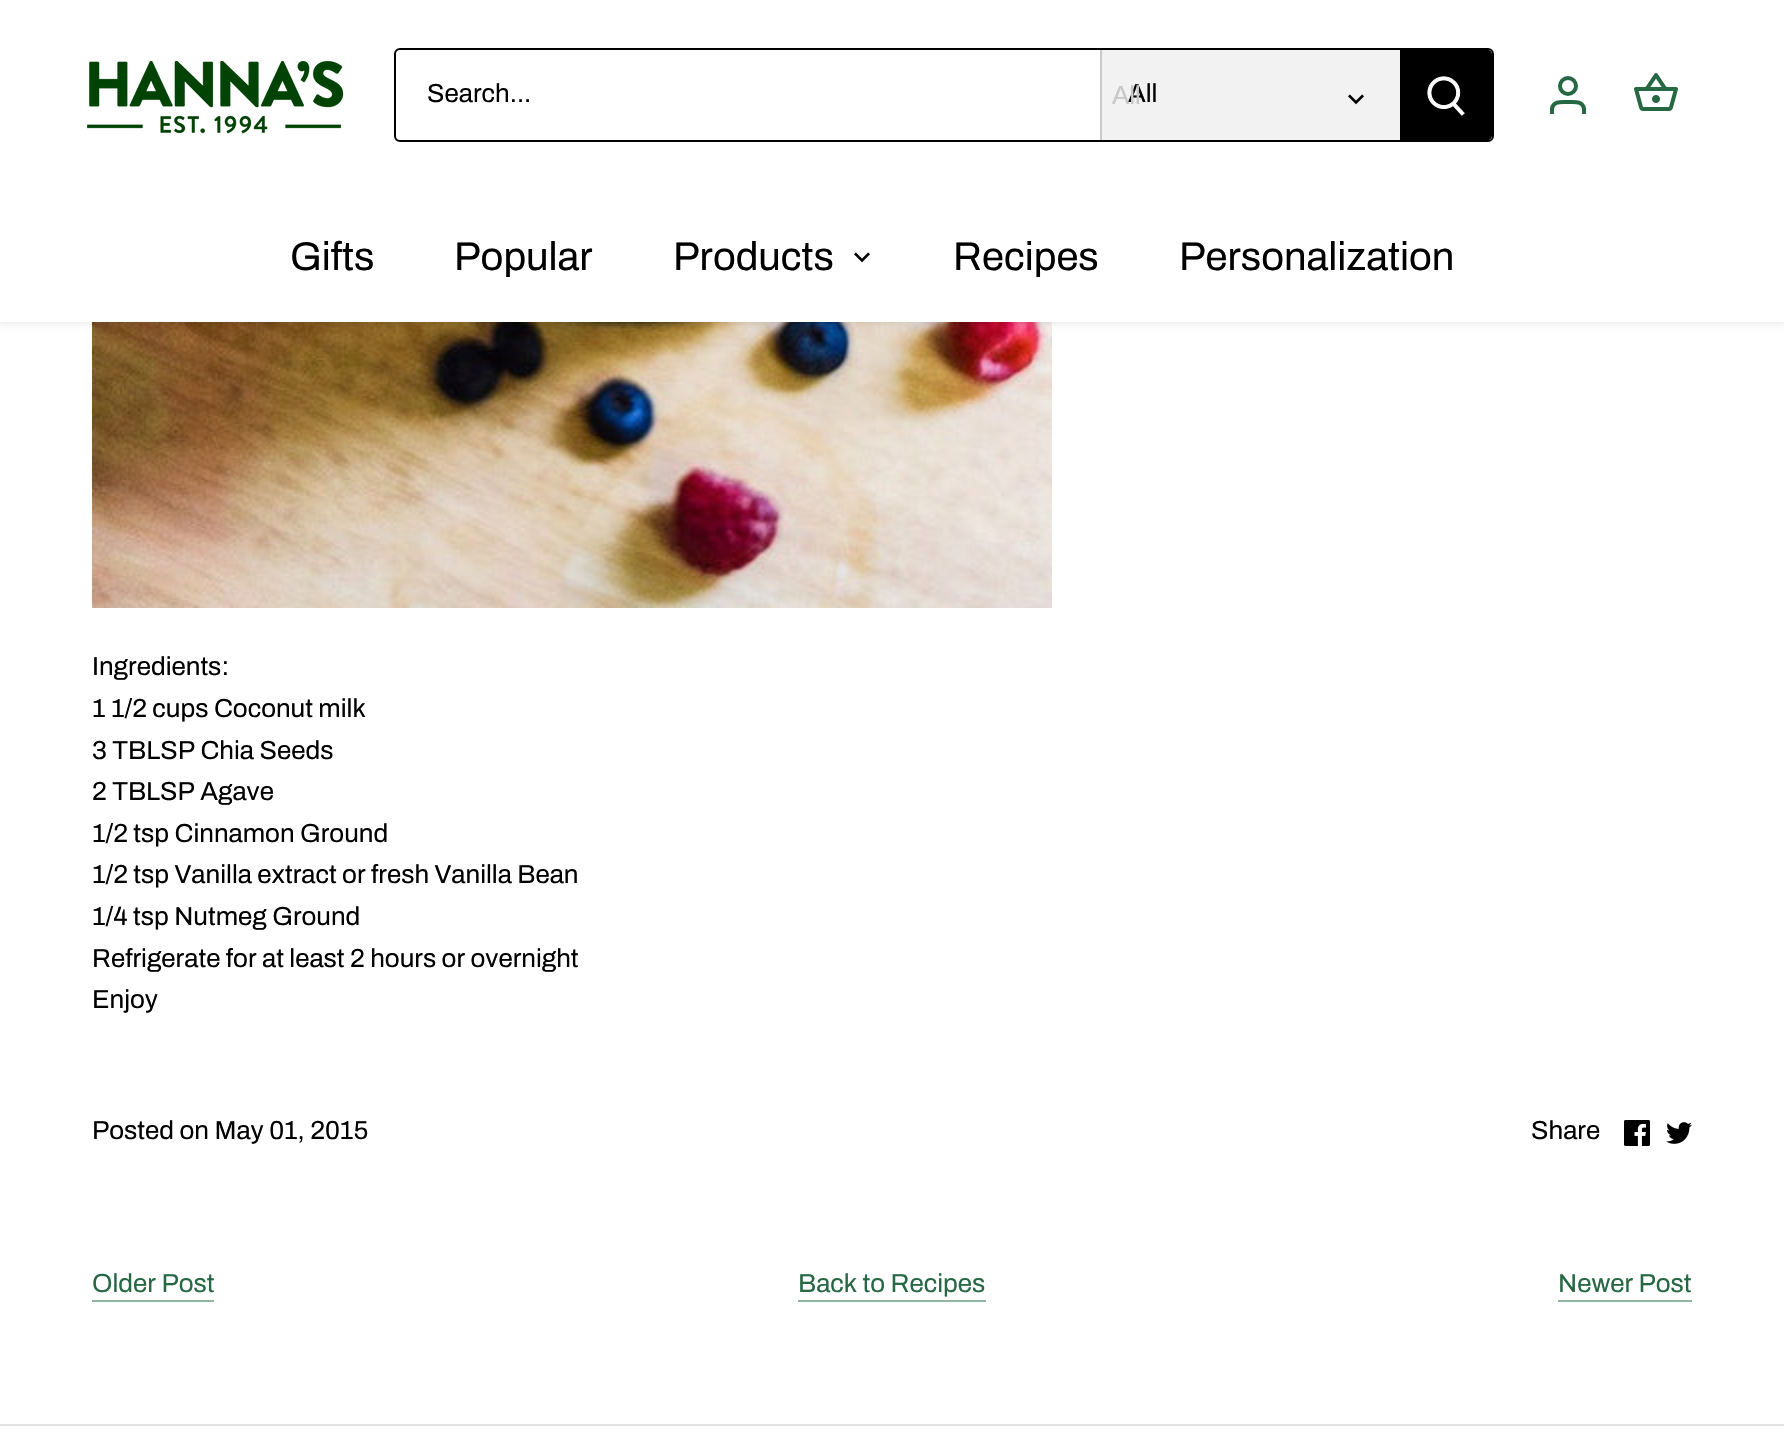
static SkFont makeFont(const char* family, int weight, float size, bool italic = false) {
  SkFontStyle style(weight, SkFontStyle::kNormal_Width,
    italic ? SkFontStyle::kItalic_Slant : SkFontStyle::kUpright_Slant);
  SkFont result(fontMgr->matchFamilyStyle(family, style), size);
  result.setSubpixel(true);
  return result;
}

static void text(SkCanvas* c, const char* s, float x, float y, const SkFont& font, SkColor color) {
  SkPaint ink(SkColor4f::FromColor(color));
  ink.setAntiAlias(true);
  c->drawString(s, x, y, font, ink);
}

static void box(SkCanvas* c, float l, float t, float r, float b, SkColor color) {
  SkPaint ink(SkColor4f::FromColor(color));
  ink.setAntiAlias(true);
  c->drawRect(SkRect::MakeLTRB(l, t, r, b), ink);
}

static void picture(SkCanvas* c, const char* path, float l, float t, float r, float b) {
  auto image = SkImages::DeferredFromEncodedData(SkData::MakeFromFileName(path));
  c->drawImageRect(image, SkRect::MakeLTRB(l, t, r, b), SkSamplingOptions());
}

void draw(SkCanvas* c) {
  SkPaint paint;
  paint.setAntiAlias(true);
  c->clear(0xffffffff);
  picture(c, "img_06.png", 92, 322, 1052, 608);
  paint.setColor(0x14000000);
  paint.setMaskFilter(SkMaskFilter::MakeBlur(kNormal_SkBlurStyle, 3));
  c->drawRect(SkRect::MakeLTRB(-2, -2, 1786, 324), paint);
  paint.setMaskFilter(nullptr);
  box(c, 0, 0, 1784, 322, 0xffffffff);
  picture(c, "img_01.png", 87, 60, 344, 134);
  paint.setStyle(SkPaint::kStroke_Style);
  paint.setStrokeWidth(2);
  paint.setColor(0xff000000);
  c->drawRoundRect(SkRect::MakeLTRB(395, 49, 1493, 141), 5, 5, paint);
  paint.setStyle(SkPaint::kFill_Style);
  paint.setColor(0xffffffff);
  c->drawPath(SkPathBuilder().moveTo(402, 50).lineTo(1100, 50).lineTo(1100, 140).lineTo(402, 140).cubicTo(398.5f, 140, 396, 137.5f, 396, 134).lineTo(396, 56).cubicTo(396, 52.5f, 398.5f, 50, 402, 50).close().detach(), paint);
  SkFont face1 = makeFont("Archivo", 400, 26);
  text(c, "Search...", 427, 102, face1, 0xff000000);
  box(c, 1102, 50, 1400, 140, 0xfff2f2f2);
  box(c, 1100, 50, 1102, 140, 0xffc9c9c9);
  text(c, "All", 1128, 102, face1, 0xff000000);
  SkFont face2 = makeFont("Liberation Sans", 400, 26);
  text(c, "All", 1112, 104, face2, 0xffc7c7c7);
  picture(c, "img_02.png", 1348, 94, 1364, 105);
  paint.setColor(0xff000000);
  c->drawPath(SkPathBuilder().moveTo(1400, 50).lineTo(1488, 50).cubicTo(1490, 50, 1492, 52, 1492, 54).lineTo(1492, 136).cubicTo(1492, 138, 1490, 140, 1488, 140).lineTo(1400, 140).close().detach(), paint);
  picture(c, "img_03.png", 1427, 76, 1465, 116);
  paint.setStyle(SkPaint::kStroke_Style);
  paint.setStrokeWidth(4);
  paint.setColor(0xff266843);
  c->drawCircle(1568, 86, 8, paint);
  c->drawPath(SkPathBuilder().moveTo(1584, 114).lineTo(1584, 108.5f).cubicTo(1582.5f, 100.5f, 1574, 102, 1568, 102).cubicTo(1562, 102, 1553.5f, 100.5f, 1552, 108.5f).lineTo(1552, 114).detach(), paint);
  picture(c, "img_04.png", 1634, 73, 1678, 111);
  SkFont face3 = makeFont("Archivo", 400, 40);
  text(c, "Gifts", 290, 270, face3, 0xff000000);
  text(c, "Popular", 454, 270, face3, 0xff000000);
  text(c, "Products", 673, 270, face3, 0xff000000);
  picture(c, "img_05.png", 854, 252, 870, 263);
  text(c, "Recipes", 953, 270, face3, 0xff000000);
  text(c, "Personalization", 1179, 270, face3, 0xff000000);
  text(c, "Ingredients:", 92, 675, face1, 0xff000000);
  text(c, "1 1/2 cups Coconut milk", 92, 717, face1, 0xff000000);
  text(c, "3 TBLSP Chia Seeds", 92, 759, face1, 0xff000000);
  text(c, "2 TBLSP Agave", 92, 800, face1, 0xff000000);
  text(c, "1/2 tsp Cinnamon Ground", 92, 842, face1, 0xff000000);
  text(c, "1/2 tsp Vanilla extract or fresh Vanilla Bean", 92, 883, face1, 0xff000000);
  text(c, "1/4 tsp Nutmeg Ground", 92, 925, face1, 0xff000000);
  text(c, "Refrigerate for at least 2 hours or overnight", 92, 967, face1, 0xff000000);
  text(c, "Enjoy", 92, 1008, face1, 0xff000000);
  text(c, "Posted on May 01, 2015", 92, 1139, face1, 0xff000000);
  text(c, "Share", 1531, 1139, face1, 0xff000000);
  picture(c, "img_07.png", 1624, 1120, 1650, 1146);
  picture(c, "img_08.png", 1666, 1122, 1692, 1144);
  text(c, "Older Post", 92, 1292, face1, 0xff266843);
  box(c, 92, 1300, 214, 1302, 0xff93b4a1);
  text(c, "Back to Recipes", 798, 1292, face1, 0xff266843);
  box(c, 798, 1300, 986, 1302, 0xff93b4a1);
  text(c, "Newer Post", 1558, 1292, face1, 0xff266843);
  box(c, 1558, 1300, 1692, 1302, 0xff93b4a1);
  box(c, 0, 1424, 1784, 1426, 0xffe2e2e2);
}
